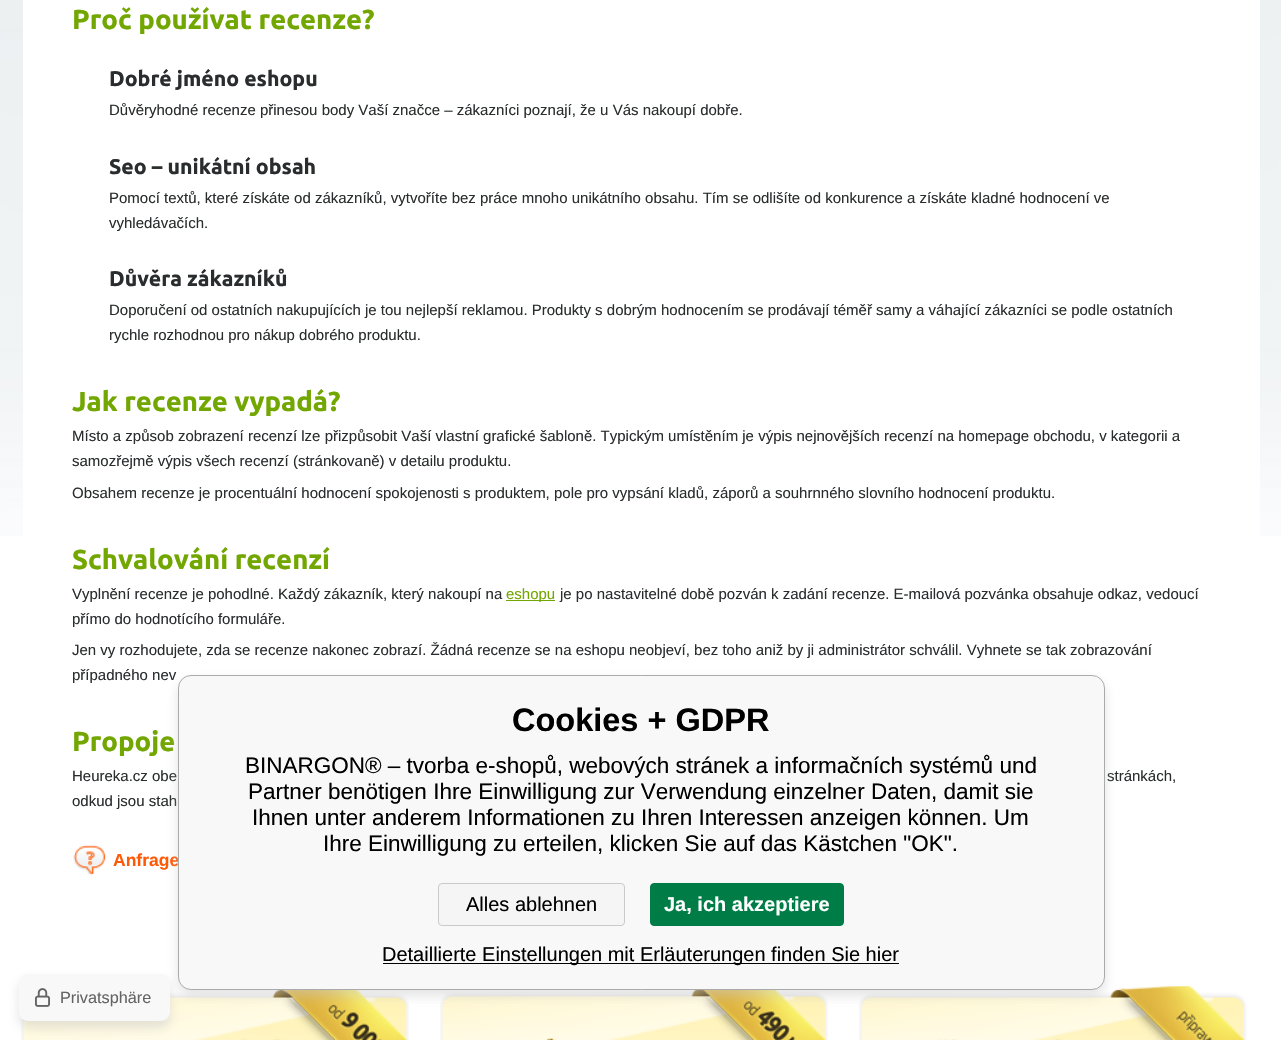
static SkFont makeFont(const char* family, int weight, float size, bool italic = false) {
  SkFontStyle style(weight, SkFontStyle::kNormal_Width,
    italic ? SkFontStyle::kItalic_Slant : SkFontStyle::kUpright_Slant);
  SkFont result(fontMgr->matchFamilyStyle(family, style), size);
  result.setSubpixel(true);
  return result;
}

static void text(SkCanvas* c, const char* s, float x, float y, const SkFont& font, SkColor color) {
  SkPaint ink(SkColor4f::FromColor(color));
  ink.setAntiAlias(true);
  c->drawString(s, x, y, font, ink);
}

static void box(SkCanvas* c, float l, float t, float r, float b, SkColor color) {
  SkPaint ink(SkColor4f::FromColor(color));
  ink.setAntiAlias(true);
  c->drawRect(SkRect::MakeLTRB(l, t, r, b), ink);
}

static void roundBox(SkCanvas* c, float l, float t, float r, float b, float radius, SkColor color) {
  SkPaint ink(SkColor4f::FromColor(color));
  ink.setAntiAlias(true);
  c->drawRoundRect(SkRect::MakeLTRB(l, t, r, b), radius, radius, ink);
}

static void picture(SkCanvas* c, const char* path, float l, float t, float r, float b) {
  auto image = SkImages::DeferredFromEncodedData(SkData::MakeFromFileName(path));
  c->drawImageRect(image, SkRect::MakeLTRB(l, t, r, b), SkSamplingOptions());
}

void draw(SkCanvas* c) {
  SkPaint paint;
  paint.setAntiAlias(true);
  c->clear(0xffffffff);
  picture(c, "img_01.png", 0, 0, 1281, 536);
  roundBox(c, 23, -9, 1260, 961, 9, 0xffffffff);
  SkFont face1 = makeFont("Ubuntu", 700, 27.5f);
  text(c, "Proč používat recenze?", 72, 29, face1, 0xff72a600);
  SkFont face2 = makeFont("Ubuntu", 700, 21.25f);
  text(c, "Dobré jméno eshopu", 109, 86, face2, 0xff2a2d2e);
  SkFont face3 = makeFont("Liberation Sans", 400, 15);
  text(c, "Důvěryhodné recenze přinesou body Vaší značce – zákazníci poznají, že u Vás nakoupí dobře.", 109, 115, face3, 0xff2a2d2e);
  text(c, "Seo – unikátní obsah", 109, 174, face2, 0xff2a2d2e);
  text(c, "Pomocí textů, které získáte od zákazníků, vytvoříte bez práce mnoho unikátního obsahu. Tím se odlišíte od konkurence a získáte kladné hodnocení ve", 109, 203, face3, 0xff2a2d2e);
  text(c, "vyhledávačích.", 109, 228, face3, 0xff2a2d2e);
  text(c, "Důvěra zákazníků", 109, 286, face2, 0xff2a2d2e);
  text(c, "Doporučení od ostatních nakupujících je tou nejlepší reklamou. Produkty s dobrým hodnocením se prodávají téměř samy a váhající zákazníci se podle ostatních", 109, 315, face3, 0xff2a2d2e);
  text(c, "rychle rozhodnou pro nákup dobrého produktu.", 109, 340, face3, 0xff2a2d2e);
  text(c, "Jak recenze vypadá?", 72, 411, face1, 0xff72a600);
  text(c, "Místo a způsob zobrazení recenzí lze přizpůsobit Vaší vlastní grafické šabloně. Typickým umístěním je výpis nejnovějších recenzí na homepage obchodu, v kategorii a", 72, 441, face3, 0xff2a2d2e);
  text(c, "samozřejmě výpis všech recenzí (stránkovaně) v detailu produktu.", 72, 466, face3, 0xff2a2d2e);
  text(c, "Obsahem recenze je procentuální hodnocení spokojenosti s produktem, pole pro vypsání kladů, záporů a souhrnného slovního hodnocení produktu.", 72, 498, face3, 0xff2a2d2e);
  text(c, "Schvalování recenzí", 72, 569, face1, 0xff72a600);
  text(c, "Vyplnění recenze je pohodlné. Každý zákazník, který nakoupí na", 72, 599, face3, 0xff2a2d2e);
  box(c, 506, 600, 555, 601, 0xff72a600);
  text(c, "eshopu", 506, 599, face3, 0xff72a600);
  text(c, "je po nastavitelné době pozván k zadání recenze. E-mailová pozvánka obsahuje odkaz, vedoucí", 560, 599, face3, 0xff2a2d2e);
  text(c, "přímo do hodnotícího formuláře.", 72, 624, face3, 0xff2a2d2e);
  text(c, "Jen vy rozhodujete, zda se recenze nakonec zobrazí. Žádná recenze se na eshopu neobjeví, bez toho aniž by ji administrátor schválil. Vyhnete se tak zobrazování", 72, 655, face3, 0xff2a2d2e);
  text(c, "případného nev", 72, 680, face3, 0xff2a2d2e);
  text(c, "Propoje", 72, 751, face1, 0xff72a600);
  text(c, "Heureka.cz obe", 72, 781, face3, 0xff2a2d2e);
  text(c, "stránkách,", 1107, 781, face3, 0xff2a2d2e);
  text(c, "odkud jsou stah", 72, 806, face3, 0xff2a2d2e);
  picture(c, "img_02.png", 73, 845, 106, 875);
  SkFont face4 = makeFont("Liberation Sans", 700, 17.5f);
  text(c, "Anfrage", 113, 866, face4, 0xffff5906);
  picture(c, "img_03.png", 21, 990, 409, 1040);
  picture(c, "img_04.png", 440, 990, 828, 1040);
  picture(c, "img_05.png", 859, 986, 1247, 1040);
  paint.setColor(0x80c8c8c8);
  paint.setMaskFilter(SkMaskFilter::MakeBlur(kNormal_SkBlurStyle, 6));
  c->drawRoundRect(SkRect::MakeLTRB(178, 681, 1105, 996), 13, 13, paint);
  paint.setMaskFilter(nullptr);
  paint.setColor(0xfff8f8f8);
  c->drawRoundRect(SkRect::MakeLTRB(178.5f, 675.5f, 1104.5f, 989.5f), 12.5f, 12.5f, paint);
  paint.setStyle(SkPaint::kStroke_Style);
  paint.setStrokeWidth(1);
  paint.setColor(0xffaaaaaa);
  c->drawRoundRect(SkRect::MakeLTRB(178.5f, 675.5f, 1104.5f, 989.5f), 12.5f, 12.5f, paint);
  SkFont face5 = makeFont("Liberation Sans", 700, 32.5f);
  text(c, "Cookies + GDPR", 512, 731, face5, 0xff000000);
  SkFont face6 = makeFont("Liberation Sans", 400, 22.5f);
  text(c, "BINARGON® – tvorba e-shopů, webových stránek a informačních systémů und", 245, 773, face6, 0xff000000);
  text(c, "Partner benötigen Ihre Einwilligung zur Verwendung einzelner Daten, damit sie", 248, 799, face6, 0xff000000);
  text(c, "Ihnen unter anderem Informationen zu Ihren Interessen anzeigen können. Um", 252, 825, face6, 0xff000000);
  text(c, "Ihre Einwilligung zu erteilen, klicken Sie auf das Kästchen \"OK\".", 323, 851, face6, 0xff000000);
  paint.setStyle(SkPaint::kFill_Style);
  paint.setColor(0xfff5f5f5);
  c->drawRoundRect(SkRect::MakeLTRB(438.5f, 883.5f, 624.5f, 925.5f), 3.5f, 3.5f, paint);
  paint.setStyle(SkPaint::kStroke_Style);
  paint.setColor(0xffcacaca);
  c->drawRoundRect(SkRect::MakeLTRB(438.5f, 883.5f, 624.5f, 925.5f), 3.5f, 3.5f, paint);
  SkFont face7 = makeFont("Liberation Sans", 400, 20);
  text(c, "Alles ablehnen", 466, 911, face7, 0xff000000);
  paint.setStyle(SkPaint::kFill_Style);
  paint.setColor(0xff007c47);
  c->drawRoundRect(SkRect::MakeLTRB(650.5f, 883.5f, 843.5f, 925.5f), 3.5f, 3.5f, paint);
  paint.setStyle(SkPaint::kStroke_Style);
  c->drawRoundRect(SkRect::MakeLTRB(650.5f, 883.5f, 843.5f, 925.5f), 3.5f, 3.5f, paint);
  SkFont face8 = makeFont("Liberation Sans", 700, 20);
  text(c, "Ja, ich akzeptiere", 664, 911, face8, 0xffffffff);
  box(c, 383, 963, 899, 964, 0xff000000);
  text(c, "Detaillierte Einstellungen mit Erläuterungen finden Sie hier", 382, 961, face7, 0xff000000);
  paint.setStyle(SkPaint::kFill_Style);
  paint.setColor(0x80c8c8c8);
  paint.setMaskFilter(SkMaskFilter::MakeBlur(kNormal_SkBlurStyle, 6));
  c->drawRoundRect(SkRect::MakeLTRB(19, 980, 170, 1028), 9, 9, paint);
  paint.setMaskFilter(nullptr);
  roundBox(c, 19, 974, 170, 1021, 9, 0xfff8f8f8);
  picture(c, "img_06.png", 35, 988, 50, 1007);
  SkFont face9 = makeFont("Liberation Sans", 400, 16.25f);
  text(c, "Privatsphäre", 60, 1003, face9, 0xff646464);
}
